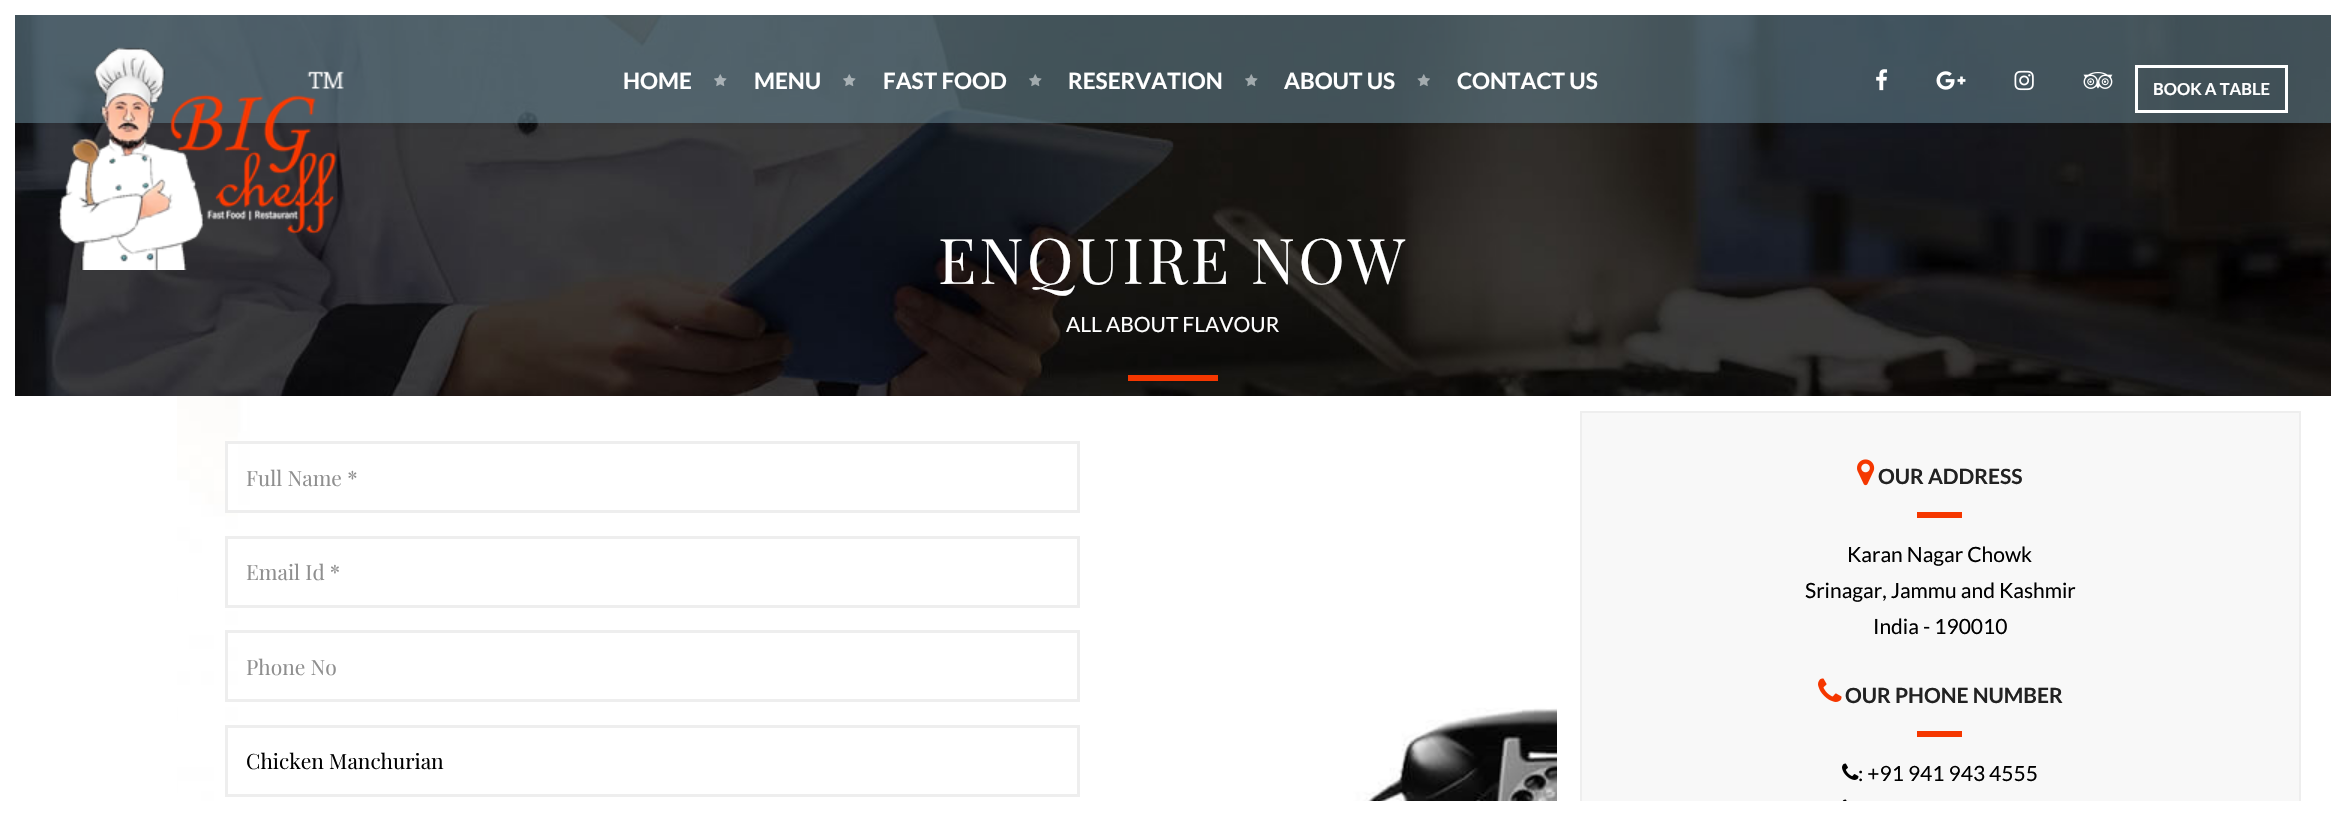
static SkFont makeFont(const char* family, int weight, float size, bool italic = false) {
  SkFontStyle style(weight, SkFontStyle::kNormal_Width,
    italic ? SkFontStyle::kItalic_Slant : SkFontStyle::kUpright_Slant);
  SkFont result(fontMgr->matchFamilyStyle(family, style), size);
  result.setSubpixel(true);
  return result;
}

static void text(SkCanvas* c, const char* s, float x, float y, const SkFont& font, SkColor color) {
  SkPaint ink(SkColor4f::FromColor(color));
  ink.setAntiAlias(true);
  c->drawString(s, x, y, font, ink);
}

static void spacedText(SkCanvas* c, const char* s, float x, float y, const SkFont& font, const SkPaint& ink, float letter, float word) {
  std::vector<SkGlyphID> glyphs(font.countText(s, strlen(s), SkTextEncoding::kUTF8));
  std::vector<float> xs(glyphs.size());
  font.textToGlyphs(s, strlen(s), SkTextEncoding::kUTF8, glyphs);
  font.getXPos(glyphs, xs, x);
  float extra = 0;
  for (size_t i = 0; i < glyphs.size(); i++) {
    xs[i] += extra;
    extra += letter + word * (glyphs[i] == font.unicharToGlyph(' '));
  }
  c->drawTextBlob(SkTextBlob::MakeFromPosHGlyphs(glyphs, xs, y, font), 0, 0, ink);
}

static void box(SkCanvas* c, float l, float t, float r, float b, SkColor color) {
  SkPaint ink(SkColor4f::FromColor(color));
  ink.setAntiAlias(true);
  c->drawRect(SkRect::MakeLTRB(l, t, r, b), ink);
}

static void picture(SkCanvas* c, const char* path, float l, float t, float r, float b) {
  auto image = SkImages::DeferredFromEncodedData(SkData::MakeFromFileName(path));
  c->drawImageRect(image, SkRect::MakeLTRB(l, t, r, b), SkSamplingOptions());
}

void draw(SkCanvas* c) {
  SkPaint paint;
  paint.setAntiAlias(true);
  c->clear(0xffffffff);
  picture(c, "img_11.png", 15, 15, 2331, 396);
  c->save();
  c->clipRect(SkRect::MakeLTRB(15, 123, 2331, 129));
  paint.setColor(0x1a000000);
  paint.setMaskFilter(SkMaskFilter::MakeBlur(kNormal_SkBlurStyle, 7.5f));
  c->drawRect(SkRect::MakeLTRB(12, 15, 2334, 123), paint);
  paint.setMaskFilter(nullptr);
  c->restore();
  box(c, 6, 5, 2340, 15, 0xffffffff);
  box(c, 2, 15, 15, 130, 0xffffffff);
  box(c, 15, 15, 2331, 123, 0x94607d8b);
  picture(c, "img_01.png", 58, 47, 344, 270);
  SkFont face1 = makeFont("Lato", 700, 22.5f);
  text(c, "HOME", 623, 89, face1, 0xffffffff);
  picture(c, "img_02.png", 714, 74, 727, 87);
  text(c, "MENU", 754, 89, face1, 0xffffffff);
  picture(c, "img_03.png", 843, 74, 856, 87);
  text(c, "FAST FOOD", 883, 89, face1, 0xffffffff);
  picture(c, "img_04.png", 1029, 74, 1042, 87);
  text(c, "RESERVATION", 1068, 89, face1, 0xffffffff);
  picture(c, "img_05.png", 1245, 74, 1258, 87);
  text(c, "ABOUT US", 1284, 89, face1, 0xffffffff);
  picture(c, "img_06.png", 1417, 74, 1430, 87);
  text(c, "CONTACT US", 1457, 89, face1, 0xffffffff);
  picture(c, "img_07.png", 1876, 69, 1888, 91);
  picture(c, "img_08.png", 1936, 71, 1966, 90);
  picture(c, "img_09.png", 2014, 70, 2034, 91);
  picture(c, "img_10.png", 2083, 72, 2113, 89);
  paint.setStyle(SkPaint::kStroke_Style);
  paint.setStrokeWidth(3);
  paint.setColor(0xffffffff);
  c->drawRect(SkRect::MakeLTRB(2136.5f, 66.5f, 2286.5f, 111.5f), paint);
  SkFont face2 = makeFont("Lato", 700, 16.5f);
  text(c, "BOOK A TABLE", 2153, 95, face2, 0xffffffff);
  box(c, 2331, 15, 2344, 130, 0xffffffff);
  SkFont face3 = makeFont("Playfair Display", 400, 63);
  paint.setStyle(SkPaint::kFill_Style);
  spacedText(c, "ENQUIRE NOW", 938, 284, face3, paint, 3, 0);
  SkFont face4 = makeFont("Lato", 400, 21);
  text(c, "ALL ABOUT FLAVOUR", 1066, 332, face4, 0xffffffff);
  box(c, 1128, 375, 1218, 381, 0xfff53700);
  picture(c, "img_12.png", 177, 396, 1557, 801);
  box(c, 228, 444, 238, 510, 0xffffffff);
  paint.setStyle(SkPaint::kStroke_Style);
  paint.setColor(0xffeeeeee);
  c->drawRect(SkRect::MakeLTRB(226.5f, 442.5f, 1078.5f, 511.5f), paint);
  SkFont face5 = makeFont("Playfair Display", 400, 21);
  text(c, "Full Name *", 246, 486, face5, 0xff8f8f8f);
  c->drawRect(SkRect::MakeLTRB(226.5f, 537.5f, 1078.5f, 606.5f), paint);
  text(c, "Email Id *", 246, 580, face5, 0xff8f8f8f);
  c->drawRect(SkRect::MakeLTRB(226.5f, 631.5f, 1078.5f, 700.5f), paint);
  text(c, "Phone No", 246, 675, face5, 0xff8f8f8f);
  c->drawRect(SkRect::MakeLTRB(226.5f, 726.5f, 1078.5f, 795.5f), paint);
  text(c, "Chicken Manchurian", 246, 769, face5, 0xff000000);
  box(c, 1582, 413, 2299, 801, 0xfff8f8f8);
  paint.setStrokeWidth(2);
  c->drawRect(SkRect::MakeLTRB(1581, 412, 2300, 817), paint);
  picture(c, "img_13.png", 1857, 459, 1875, 486);
  SkFont face6 = makeFont("Lato", 700, 21);
  text(c, "OUR ADDRESS", 1878, 484, face6, 0xff222222);
  box(c, 1917, 512, 1962, 518, 0xfff53700);
  text(c, "Karan Nagar Chowk", 1847, 562, face4, 0xff000000);
  text(c, "Srinagar, Jammu and Kashmir", 1805, 598, face4, 0xff000000);
  text(c, "India - 190010", 1873, 634, face4, 0xff000000);
  picture(c, "img_14.png", 1818, 678, 1842, 702);
  text(c, "OUR PHONE NUMBER", 1845, 703, face6, 0xff222222);
  box(c, 1917, 731, 1962, 737, 0xfff53700);
  picture(c, "img_15.png", 1842, 763, 1859, 780);
  text(c, ": +91 941 943 4555", 1858, 781, face4, 0xff000000);
  picture(c, "img_16.png", 1842, 799, 1847, 801);
  box(c, 1580, 801, 2301, 816, 0xffffffff);
}
